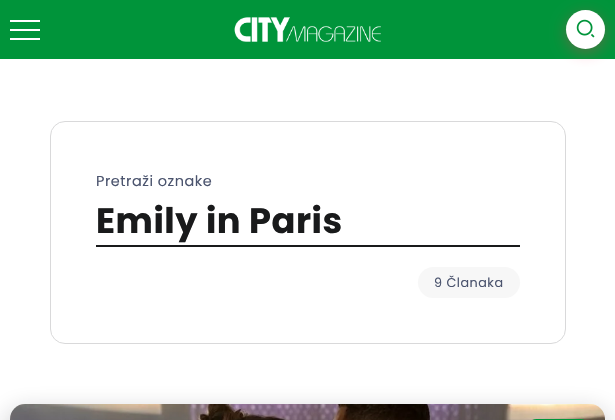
static SkFont makeFont(const char* family, int weight, float size, bool italic = false) {
  SkFontStyle style(weight, SkFontStyle::kNormal_Width,
    italic ? SkFontStyle::kItalic_Slant : SkFontStyle::kUpright_Slant);
  SkFont result(fontMgr->matchFamilyStyle(family, style), size);
  result.setSubpixel(true);
  return result;
}

static void spacedText(SkCanvas* c, const char* s, float x, float y, const SkFont& font, const SkPaint& ink, float letter, float word) {
  std::vector<SkGlyphID> glyphs(font.countText(s, strlen(s), SkTextEncoding::kUTF8));
  std::vector<float> xs(glyphs.size());
  font.textToGlyphs(s, strlen(s), SkTextEncoding::kUTF8, glyphs);
  font.getXPos(glyphs, xs, x);
  float extra = 0;
  for (size_t i = 0; i < glyphs.size(); i++) {
    xs[i] += extra;
    extra += letter + word * (glyphs[i] == font.unicharToGlyph(' '));
  }
  c->drawTextBlob(SkTextBlob::MakeFromPosHGlyphs(glyphs, xs, y, font), 0, 0, ink);
}

static void box(SkCanvas* c, float l, float t, float r, float b, SkColor color) {
  SkPaint ink(SkColor4f::FromColor(color));
  ink.setAntiAlias(true);
  c->drawRect(SkRect::MakeLTRB(l, t, r, b), ink);
}

static void roundBox(SkCanvas* c, float l, float t, float r, float b, float radius, SkColor color) {
  SkPaint ink(SkColor4f::FromColor(color));
  ink.setAntiAlias(true);
  c->drawRoundRect(SkRect::MakeLTRB(l, t, r, b), radius, radius, ink);
}

static void picture(SkCanvas* c, const char* path, float l, float t, float r, float b) {
  auto image = SkImages::DeferredFromEncodedData(SkData::MakeFromFileName(path));
  c->drawImageRect(image, SkRect::MakeLTRB(l, t, r, b), SkSamplingOptions());
}

void draw(SkCanvas* c) {
  SkPaint paint;
  paint.setAntiAlias(true);
  c->clear(0xffffffff);
  box(c, 0, 0, 615, 59, 0xff00943a);
  box(c, 10, 20, 40, 22, 0xffffffff);
  box(c, 10, 29, 40, 31, 0xffffffff);
  box(c, 10, 38, 40, 40, 0xffffffff);
  picture(c, "img_01.png", 234, 17, 381, 42);
  paint.setColor(0x54ff2c54);
  paint.setMaskFilter(SkMaskFilter::MakeBlur(kNormal_SkBlurStyle, 7.5f));
  c->drawRoundRect(SkRect::MakeLTRB(566, 14, 605, 53), 19.5f, 19.5f, paint);
  paint.setMaskFilter(nullptr);
  paint.setColor(0xffffffff);
  c->drawCircle(585.5f, 29.5f, 19.5f, paint);
  picture(c, "img_02.png", 576, 19, 595, 38);
  paint.setStyle(SkPaint::kStroke_Style);
  paint.setStrokeWidth(1);
  paint.setColor(0xffd9d9da);
  c->drawRoundRect(SkRect::MakeLTRB(50.5f, 121.5f, 565.5f, 343.5f), 14.5f, 14.5f, paint);
  SkFont face1 = makeFont("Poppins", 400, 14.5f);
  paint.setStyle(SkPaint::kFill_Style);
  paint.setColor(0xff4b546e);
  spacedText(c, "Pretraži oznake", 96, 186, face1, paint, 0.5f, 0);
  box(c, 96, 245, 520, 247, 0xff191a1b);
  SkFont face2 = makeFont("Poppins", 700, 35.25f);
  paint.setColor(0xff191a1b);
  spacedText(c, "Emily in Paris", 96, 233, face2, paint, 0.5f, 0);
  roundBox(c, 418, 267, 520, 298, 15.5f, 0xfff7f7f7);
  SkFont face3 = makeFont("Poppins", 400, 12.75f);
  paint.setColor(0xff4b546e);
  spacedText(c, "9 Članaka", 434, 287, face3, paint, 0.5f, 0);
  paint.setColor(0x36171920);
  paint.setMaskFilter(SkMaskFilter::MakeBlur(kNormal_SkBlurStyle, 12.5f));
  c->drawRoundRect(SkRect::MakeLTRB(6, 410, 609, 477), 19, 19, paint);
  paint.setMaskFilter(nullptr);
  picture(c, "img_03.png", 10, 404, 605, 420);
  roundBox(c, 527, 419, 590, 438, 17.5f, 0xff01943a);
}
